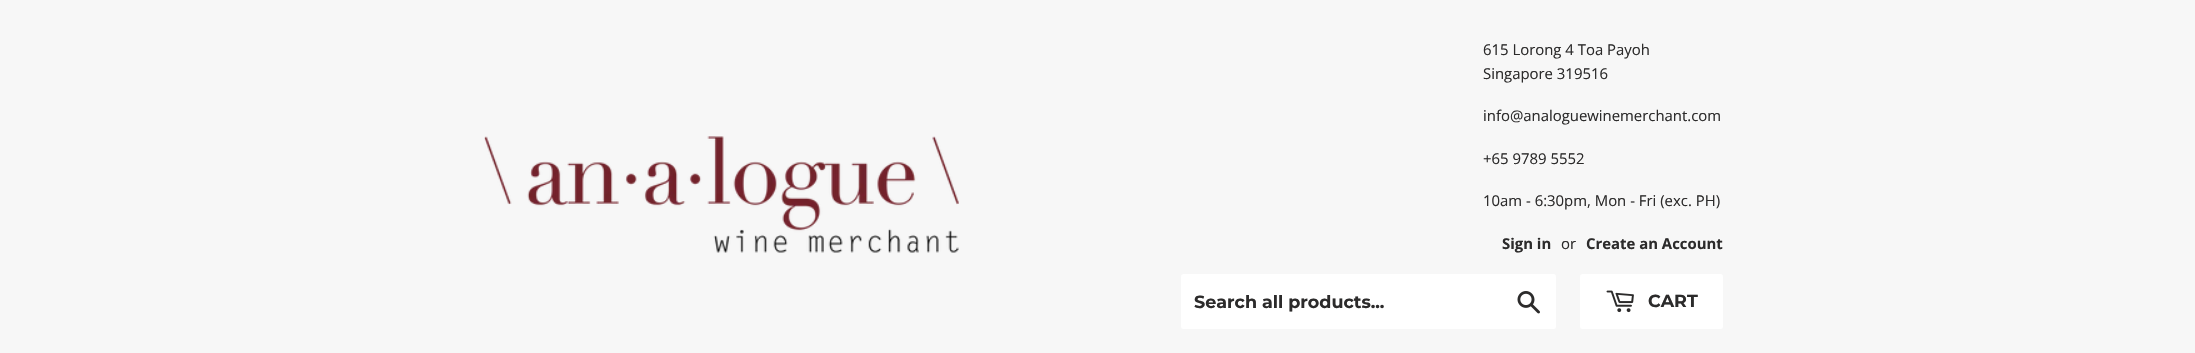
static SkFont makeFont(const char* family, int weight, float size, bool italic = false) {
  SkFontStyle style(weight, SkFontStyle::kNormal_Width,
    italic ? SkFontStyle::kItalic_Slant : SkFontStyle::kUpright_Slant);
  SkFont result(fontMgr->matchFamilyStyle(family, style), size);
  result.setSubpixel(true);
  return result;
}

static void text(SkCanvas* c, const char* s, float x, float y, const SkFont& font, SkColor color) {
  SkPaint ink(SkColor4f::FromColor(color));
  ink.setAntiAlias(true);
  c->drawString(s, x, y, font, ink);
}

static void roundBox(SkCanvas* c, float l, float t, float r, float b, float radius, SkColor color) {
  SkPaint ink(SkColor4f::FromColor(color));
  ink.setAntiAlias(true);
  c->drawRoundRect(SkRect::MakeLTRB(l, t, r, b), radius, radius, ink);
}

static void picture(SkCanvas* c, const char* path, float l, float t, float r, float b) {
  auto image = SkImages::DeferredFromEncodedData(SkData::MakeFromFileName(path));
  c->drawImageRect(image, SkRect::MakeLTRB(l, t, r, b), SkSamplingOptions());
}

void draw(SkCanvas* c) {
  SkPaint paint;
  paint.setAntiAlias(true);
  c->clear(0xfff7f7f7);
  picture(c, "img_01.png", 484, 136, 959, 253);
  SkFont face1 = makeFont("Open Sans", 400, 14.9f);
  text(c, "615 Lorong 4 Toa Payoh", 1483, 55, face1, 0xff2c2b2b);
  text(c, "Singapore 319516", 1483, 79, face1, 0xff2c2b2b);
  text(c, "info@analoguewinemerchant.com", 1483, 121, face1, 0xff2c2b2b);
  text(c, "+65 9789 5552", 1483, 164, face1, 0xff2c2b2b);
  text(c, "10am - 6:30pm, Mon - Fri (exc. PH)", 1483, 206, face1, 0xff2c2b2b);
  SkFont face2 = makeFont("Open Sans", 700, 14.9f);
  text(c, "Sign in", 1502, 249, face2, 0xff2c2b2b);
  text(c, "or", 1561, 249, face1, 0xff2c2b2b);
  text(c, "Create an Account", 1586, 249, face2, 0xff2c2b2b);
  roundBox(c, 1181, 274, 1556, 329, 2.5f, 0xffffffff);
  SkFont face3 = makeFont("Montserrat", 100, 17.5f);
  text(c, "Search all products...", 1194, 308, face3, 0xff2c2b2b);
  picture(c, "img_02.png", 1517, 291, 1540, 314);
  roundBox(c, 1580, 274, 1723, 329, 2.5f, 0xffffffff);
  picture(c, "img_03.png", 1606, 290, 1634, 313);
  text(c, "CART", 1648, 307, face3, 0xff2c2b2b);
}
